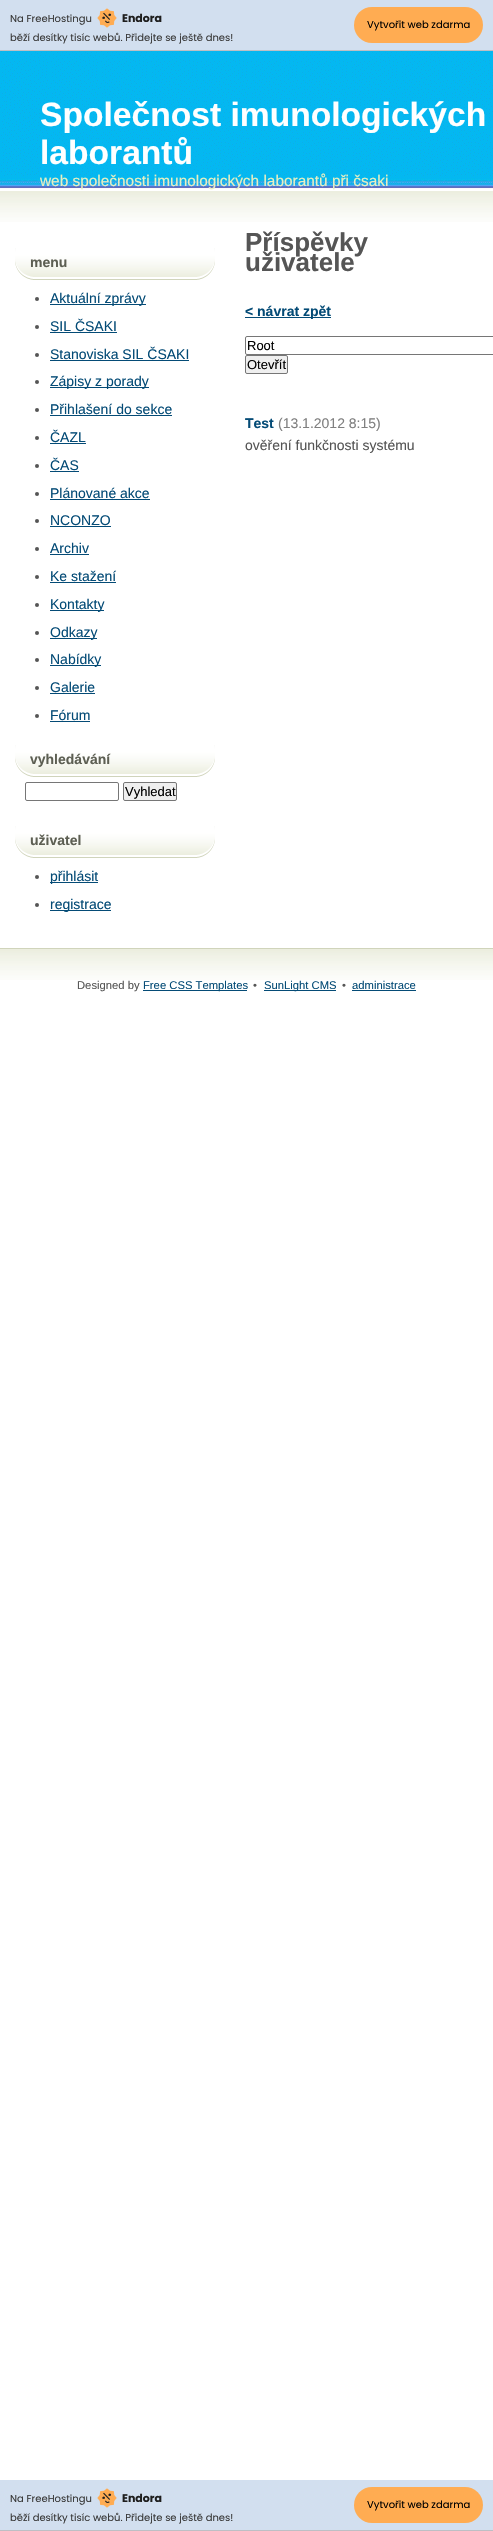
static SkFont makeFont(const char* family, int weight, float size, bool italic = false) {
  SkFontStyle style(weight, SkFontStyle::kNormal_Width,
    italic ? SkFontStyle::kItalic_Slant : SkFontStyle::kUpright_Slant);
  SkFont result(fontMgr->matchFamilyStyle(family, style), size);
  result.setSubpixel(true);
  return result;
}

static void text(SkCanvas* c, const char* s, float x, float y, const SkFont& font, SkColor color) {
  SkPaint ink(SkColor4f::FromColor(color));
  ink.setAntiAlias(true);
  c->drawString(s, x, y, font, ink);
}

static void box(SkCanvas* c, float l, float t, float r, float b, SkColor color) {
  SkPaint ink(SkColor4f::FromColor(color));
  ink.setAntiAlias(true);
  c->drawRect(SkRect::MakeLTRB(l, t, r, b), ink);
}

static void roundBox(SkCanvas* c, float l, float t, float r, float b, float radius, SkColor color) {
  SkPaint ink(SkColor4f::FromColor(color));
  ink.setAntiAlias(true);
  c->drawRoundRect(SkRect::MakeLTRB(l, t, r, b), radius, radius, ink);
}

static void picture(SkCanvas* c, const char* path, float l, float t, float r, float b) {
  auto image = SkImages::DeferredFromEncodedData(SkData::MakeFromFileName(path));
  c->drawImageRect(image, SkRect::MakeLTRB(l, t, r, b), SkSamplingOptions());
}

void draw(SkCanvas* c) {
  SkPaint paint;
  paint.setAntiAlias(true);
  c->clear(0xffffffff);
  box(c, 0, 0, 493, 50, 0xffd2dfef);
  box(c, 0, 50, 493, 51, 0xffbebfc4);
  SkFont face1 = makeFont("Poppins", 400, 10);
  text(c, "Na FreeHostingu", 10, 22, face1, 0xff3a3a3a);
  picture(c, "img_01.png", 97, 8, 117, 28);
  SkFont face2 = makeFont("Poppins", 700, 11);
  text(c, "Endora", 122, 22, face2, 0xff1e1e1e);
  text(c, "běží desítky tisíc webů. Přidejte se ještě dnes!", 10, 41, face1, 0xff3a3a3a);
  roundBox(c, 354, 7, 483, 43, 18, 0xffffac52);
  text(c, "Vytvořit web zdarma", 367, 28, face1, 0xff000000);
  picture(c, "img_02.png", 0, 51, 493, 189);
  SkFont face3 = makeFont("Liberation Sans", 700, 33.6f);
  text(c, "Společnost imunologických", 40, 126, face3, 0xffffffff);
  text(c, "laborantů", 40, 164, face3, 0xffffffff);
  SkFont face4 = makeFont("Liberation Sans", 400, 15.4f);
  text(c, "web společnosti imunologických laborantů při čsaki", 40, 186, face4, 0xffe8efc2);
  picture(c, "img_03.png", 0, 191, 493, 222);
  picture(c, "img_04.png", 15, 248, 215, 280);
  SkFont face5 = makeFont("Liberation Sans", 700, 14);
  text(c, "menu", 30, 267, face5, 0xff5d5f53);
  paint.setColor(0xff555555);
  c->drawCircle(37, 299, 2, paint);
  box(c, 50, 304, 146, 305, 0xff044b76);
  SkFont face6 = makeFont("Liberation Sans", 400, 14);
  text(c, "Aktuální zprávy", 50, 303, face6, 0xff044b76);
  c->drawCircle(37, 327, 2, paint);
  text(c, "SIL ČSAKI", 50, 331, face6, 0xff044b76);
  box(c, 50, 332, 117, 333, 0xff044b76);
  c->drawCircle(37, 355, 2, paint);
  text(c, "Stanoviska SIL ČSAKI", 50, 359, face6, 0xff044b76);
  box(c, 50, 360, 189, 361, 0xff044b76);
  c->drawCircle(37, 382, 2, paint);
  box(c, 50, 387, 149, 388, 0xff044b76);
  text(c, "Zápisy z porady", 50, 386, face6, 0xff044b76);
  c->drawCircle(37, 410, 2, paint);
  text(c, "Přihlašení do sekce", 50, 414, face6, 0xff044b76);
  box(c, 50, 415, 172, 416, 0xff044b76);
  c->drawCircle(37, 438, 2, paint);
  text(c, "ČAZL", 50, 442, face6, 0xff044b76);
  box(c, 50, 443, 86, 444, 0xff044b76);
  c->drawCircle(37, 466, 2, paint);
  text(c, "ČAS", 50, 470, face6, 0xff044b76);
  box(c, 50, 471, 79, 472, 0xff044b76);
  c->drawCircle(37, 494, 2, paint);
  text(c, "Plánované akce", 50, 498, face6, 0xff044b76);
  box(c, 50, 499, 150, 500, 0xff044b76);
  c->drawCircle(37, 521, 2, paint);
  text(c, "NCONZO", 50, 525, face6, 0xff044b76);
  box(c, 50, 526, 111, 527, 0xff044b76);
  c->drawCircle(37, 549, 2, paint);
  text(c, "Archiv", 50, 553, face6, 0xff044b76);
  box(c, 50, 554, 89, 555, 0xff044b76);
  c->drawCircle(37, 577, 2, paint);
  text(c, "Ke stažení", 50, 581, face6, 0xff044b76);
  box(c, 50, 582, 116, 583, 0xff044b76);
  c->drawCircle(37, 605, 2, paint);
  box(c, 50, 610, 104, 611, 0xff044b76);
  text(c, "Kontakty", 50, 609, face6, 0xff044b76);
  c->drawCircle(37, 633, 2, paint);
  box(c, 50, 638, 97, 639, 0xff044b76);
  text(c, "Odkazy", 50, 637, face6, 0xff044b76);
  c->drawCircle(37, 660, 2, paint);
  box(c, 50, 665, 101, 666, 0xff044b76);
  text(c, "Nabídky", 50, 664, face6, 0xff044b76);
  c->drawCircle(37, 688, 2, paint);
  text(c, "Galerie", 50, 692, face6, 0xff044b76);
  box(c, 50, 693, 95, 694, 0xff044b76);
  c->drawCircle(37, 716, 2, paint);
  text(c, "Fórum", 50, 720, face6, 0xff044b76);
  box(c, 50, 721, 90, 722, 0xff044b76);
  picture(c, "img_04.png", 15, 745, 215, 777);
  text(c, "vyhledávání", 30, 764, face5, 0xff5d5f53);
  paint.setStyle(SkPaint::kStroke_Style);
  paint.setStrokeWidth(1);
  paint.setColor(0xff767676);
  c->drawRoundRect(SkRect::MakeLTRB(25.5f, 782.5f, 118.5f, 800.5f), 1.5f, 1.5f, paint);
  paint.setStyle(SkPaint::kFill_Style);
  paint.setColor(0xffefefef);
  c->drawRoundRect(SkRect::MakeLTRB(123.5f, 782.5f, 176.5f, 800.5f), 1.5f, 1.5f, paint);
  paint.setStyle(SkPaint::kStroke_Style);
  paint.setColor(0xff767676);
  c->drawRoundRect(SkRect::MakeLTRB(123.5f, 782.5f, 176.5f, 800.5f), 1.5f, 1.5f, paint);
  SkFont face7 = makeFont("Liberation Sans", 400, 13);
  text(c, "Vyhledat", 125, 796, face7, 0xff000000);
  picture(c, "img_04.png", 15, 826, 215, 858);
  text(c, "uživatel", 30, 845, face5, 0xff5d5f53);
  paint.setStyle(SkPaint::kFill_Style);
  paint.setColor(0xff555555);
  c->drawCircle(37, 877, 2, paint);
  box(c, 50, 882, 98, 883, 0xff044b76);
  text(c, "přihlásit", 50, 881, face6, 0xff044b76);
  c->drawCircle(37, 905, 2, paint);
  box(c, 50, 910, 111, 911, 0xff044b76);
  text(c, "registrace", 50, 909, face6, 0xff044b76);
  SkFont face8 = makeFont("Liberation Sans", 700, 26);
  text(c, "Příspěvky", 245, 251, face8, 0xff555555);
  text(c, "uživatele", 245, 271, face8, 0xff555555);
  box(c, 245, 317, 331, 318, 0xff044b76);
  text(c, "< návrat zpět", 245, 316, face5, 0xff044b76);
  paint.setStyle(SkPaint::kStroke_Style);
  paint.setColor(0xff767676);
  c->drawRoundRect(SkRect::MakeLTRB(245.5f, 336.5f, 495.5f, 354.5f), 1.5f, 1.5f, paint);
  text(c, "Root", 247, 350, face7, 0xff000000);
  paint.setStyle(SkPaint::kFill_Style);
  paint.setColor(0xffefefef);
  c->drawRoundRect(SkRect::MakeLTRB(245.5f, 355.5f, 287.5f, 373.5f), 1.5f, 1.5f, paint);
  paint.setStyle(SkPaint::kStroke_Style);
  paint.setColor(0xff767676);
  c->drawRoundRect(SkRect::MakeLTRB(245.5f, 355.5f, 287.5f, 373.5f), 1.5f, 1.5f, paint);
  text(c, "Otevřít", 247, 369, face7, 0xff000000);
  text(c, "Test", 245, 428, face5, 0xff044b76);
  text(c, "(13.1.2012 8:15)", 278, 428, face6, 0xff808080);
  text(c, "ověření funkčnosti systému", 245, 450, face6, 0xff555555);
  picture(c, "img_03.png", 0, 949, 493, 980);
  box(c, 0, 948, 493, 949, 0xffd0d4bb);
  SkFont face9 = makeFont("Liberation Sans", 400, 11.25f);
  text(c, "Designed by", 77, 989, face9, 0xff555555);
  box(c, 143, 990, 247, 991, 0xff044b76);
  text(c, "Free CSS Templates", 143, 989, face9, 0xff044b76);
  text(c, "•", 253, 989, face9, 0xff555555);
  box(c, 264, 990, 336, 991, 0xff044b76);
  text(c, "SunLight CMS", 264, 989, face9, 0xff044b76);
  text(c, "•", 342, 989, face9, 0xff555555);
  text(c, "administrace", 352, 989, face9, 0xff044b76);
  box(c, 352, 990, 416, 991, 0xff044b76);
  box(c, 0, 2480, 493, 2530, 0xffd2dfef);
  box(c, 0, 2530, 493, 2531, 0xffbebfc4);
  text(c, "Na FreeHostingu", 10, 2502, face1, 0xff3a3a3a);
  picture(c, "img_01.png", 97, 2488, 117, 2508);
  text(c, "Endora", 122, 2502, face2, 0xff1e1e1e);
  text(c, "běží desítky tisíc webů. Přidejte se ještě dnes!", 10, 2521, face1, 0xff3a3a3a);
  roundBox(c, 354, 2487, 483, 2523, 18, 0xffffac52);
  text(c, "Vytvořit web zdarma", 367, 2508, face1, 0xff000000);
}
